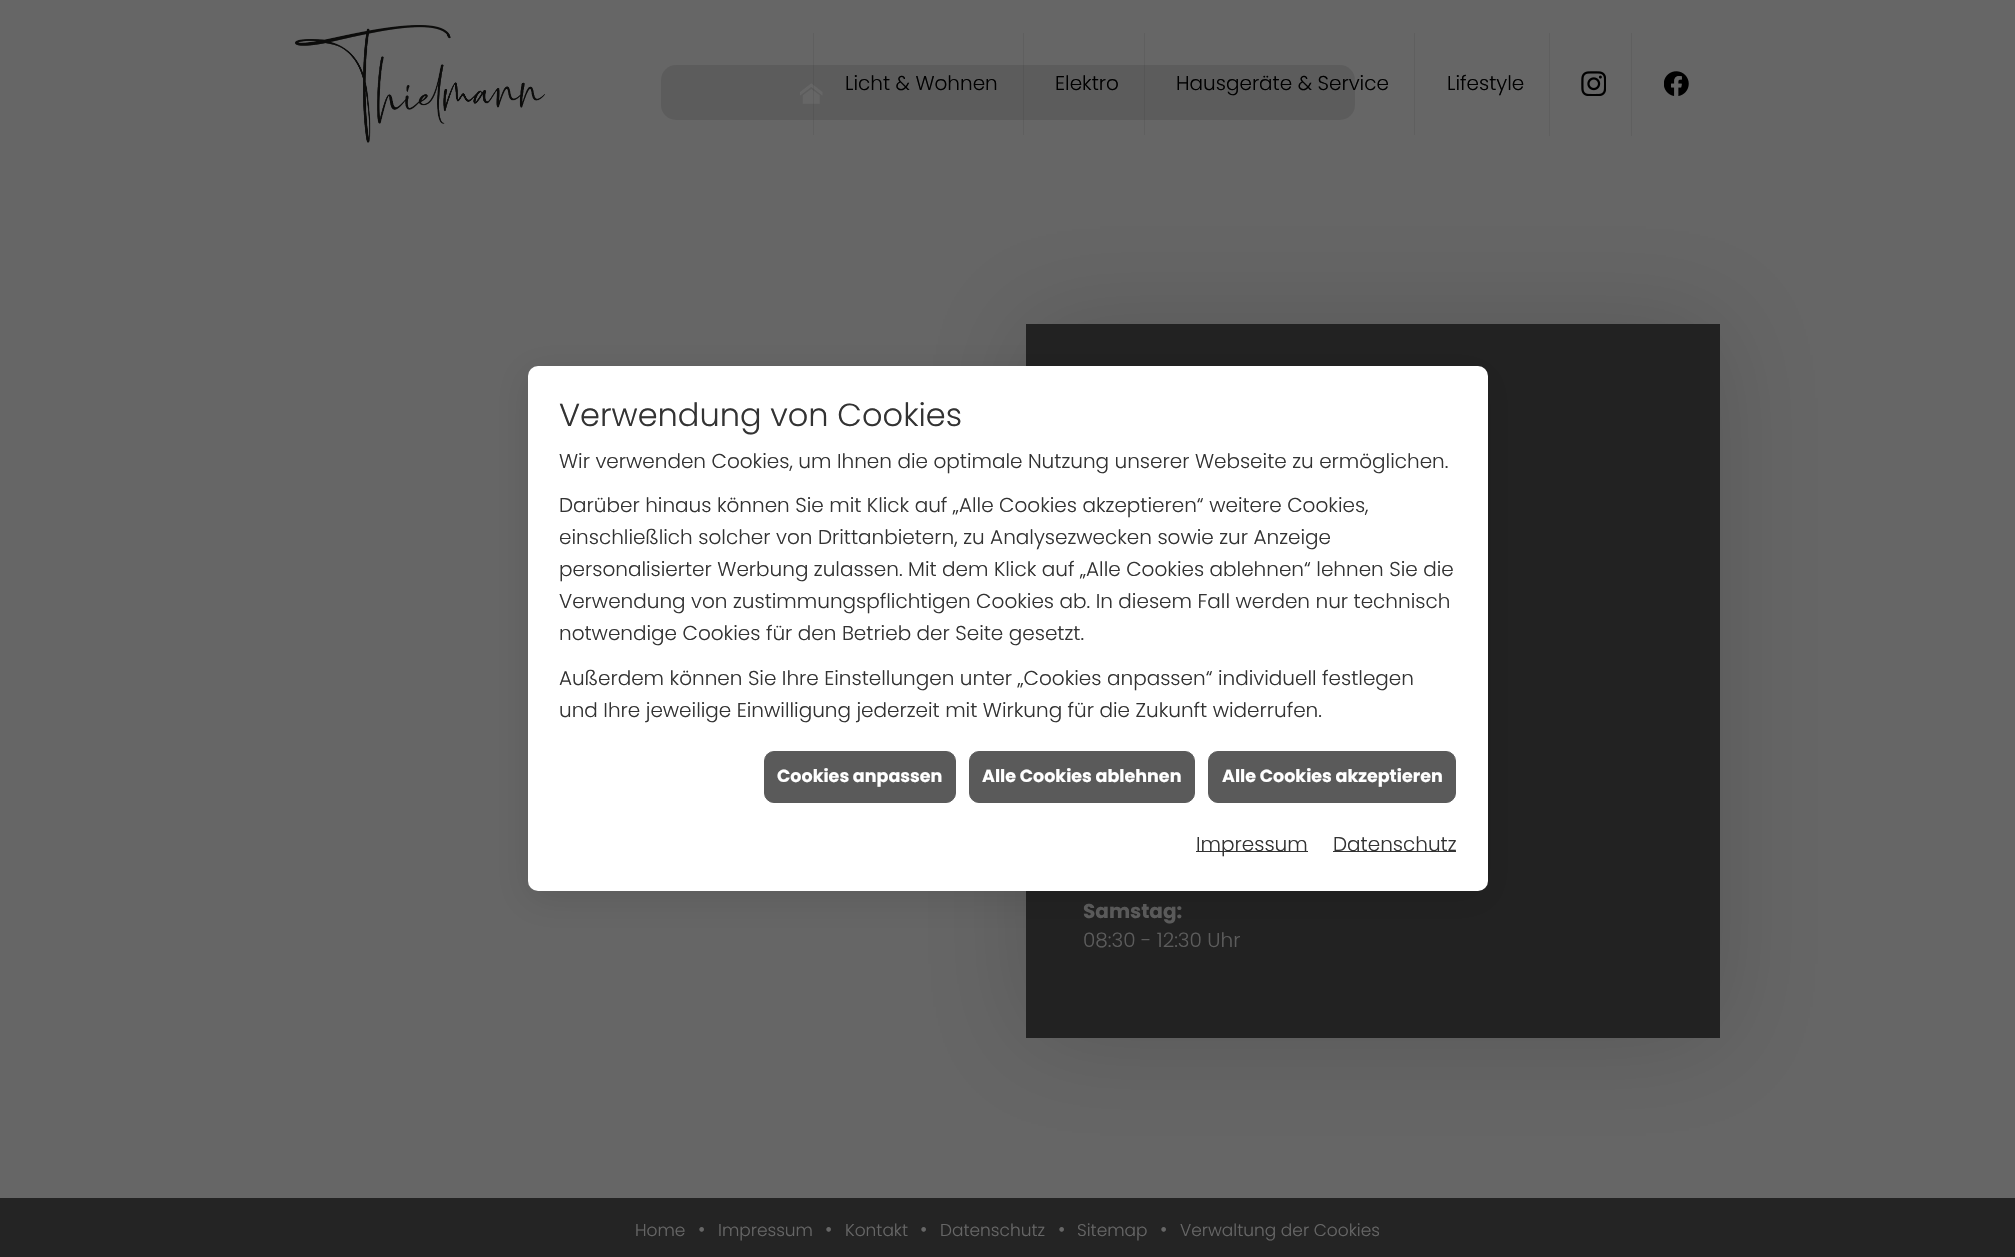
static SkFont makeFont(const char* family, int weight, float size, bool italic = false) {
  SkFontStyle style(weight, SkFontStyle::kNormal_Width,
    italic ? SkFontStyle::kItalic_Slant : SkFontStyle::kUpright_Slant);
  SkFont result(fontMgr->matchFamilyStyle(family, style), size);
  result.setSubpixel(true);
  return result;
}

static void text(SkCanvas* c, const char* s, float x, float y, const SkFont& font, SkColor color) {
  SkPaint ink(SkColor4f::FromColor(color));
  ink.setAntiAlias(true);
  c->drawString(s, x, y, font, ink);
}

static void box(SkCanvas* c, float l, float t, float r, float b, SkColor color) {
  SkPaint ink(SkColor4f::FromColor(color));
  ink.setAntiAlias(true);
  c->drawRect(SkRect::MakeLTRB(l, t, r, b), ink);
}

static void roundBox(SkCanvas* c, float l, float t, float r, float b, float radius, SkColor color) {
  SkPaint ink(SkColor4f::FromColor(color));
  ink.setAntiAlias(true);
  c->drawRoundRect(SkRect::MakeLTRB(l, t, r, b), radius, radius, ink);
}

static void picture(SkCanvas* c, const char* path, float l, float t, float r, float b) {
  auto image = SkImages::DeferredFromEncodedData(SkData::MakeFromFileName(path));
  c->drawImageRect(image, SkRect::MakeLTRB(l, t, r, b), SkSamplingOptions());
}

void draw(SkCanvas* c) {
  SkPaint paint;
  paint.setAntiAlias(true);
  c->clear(0xff666666);
  box(c, 1023, 33, 1024, 135, 0xff5f5f5f);
  roundBox(c, 661, 65, 1355, 120, 15, 0xff5c5c5c);
  box(c, 1023, 65, 1024, 120, 0xff565656);
  picture(c, "img_01.png", 800, 83, 823, 104);
  picture(c, "img_02.png", 295, 25, 545, 143);
  box(c, 813, 33, 814, 135, 0x12000000);
  SkFont face1 = makeFont("Poppins", 300, 20);
  text(c, "Licht & Wohnen", 845, 90, face1, 0xff000000);
  text(c, "Elektro", 1055, 90, face1, 0xff000000);
  box(c, 1144, 33, 1145, 135, 0x12000000);
  text(c, "Hausgeräte & Service", 1176, 90, face1, 0xff000000);
  box(c, 1414, 33, 1415, 135, 0xff5f5f5f);
  text(c, "Lifestyle", 1447, 90, face1, 0xff000000);
  box(c, 1549, 33, 1550, 136, 0xff5f5f5f);
  picture(c, "img_03.png", 1581, 71, 1606, 96);
  box(c, 1631, 33, 1632, 136, 0xff5f5f5f);
  picture(c, "img_04.png", 1664, 71, 1689, 96);
  paint.setColor(0x26000000);
  paint.setMaskFilter(SkMaskFilter::MakeBlur(kNormal_SkBlurStyle, 50));
  c->drawRect(SkRect::MakeLTRB(1026, 324, 1720, 1038), paint);
  paint.setMaskFilter(nullptr);
  box(c, 1026, 324, 1720, 1038, 0xff222222);
  SkFont face2 = makeFont("Poppins", 700, 20);
  text(c, "Samstag:", 1083, 918, face2, 0xff5c5c5c);
  text(c, "08:30 - 12:30 Uhr", 1083, 947, face1, 0xff5c5c5c);
  box(c, 0, 1198, 2015, 1257, 0xff242424);
  SkFont face3 = makeFont("Poppins", 300, 17);
  text(c, "Home", 635, 1236, face3, 0xff666666);
  text(c, "•", 698, 1236, face1, 0xff666666);
  text(c, "Impressum", 718, 1236, face3, 0xff666666);
  text(c, "•", 825, 1236, face1, 0xff666666);
  text(c, "Kontakt", 845, 1236, face3, 0xff666666);
  text(c, "•", 920, 1236, face1, 0xff666666);
  text(c, "Datenschutz", 940, 1236, face3, 0xff666666);
  text(c, "•", 1058, 1236, face1, 0xff666666);
  text(c, "Sitemap", 1077, 1236, face3, 0xff666666);
  text(c, "•", 1160, 1236, face1, 0xff666666);
  text(c, "Verwaltung der Cookies", 1180, 1236, face3, 0xff666666);
  paint.setColor(0x1a000000);
  paint.setMaskFilter(SkMaskFilter::MakeBlur(kNormal_SkBlurStyle, 17.5f));
  c->drawRoundRect(SkRect::MakeLTRB(528, 374, 1488, 899), 10, 10, paint);
  paint.setMaskFilter(nullptr);
  roundBox(c, 528, 366, 1488, 891, 10, 0xffffffff);
  SkFont face4 = makeFont("Poppins", 300, 32);
  text(c, "Verwendung von Cookies", 559, 426, face4, 0xff333333);
  text(c, "Wir verwenden Cookies, um Ihnen die optimale Nutzung unserer Webseite zu ermöglichen.", 559, 468, face1, 0xff333333);
  text(c, "Darüber hinaus können Sie mit Klick auf „Alle Cookies akzeptieren“ weitere Cookies,", 559, 512, face1, 0xff333333);
  text(c, "einschließlich solcher von Drittanbietern, zu Analysezwecken sowie zur Anzeige", 559, 544, face1, 0xff333333);
  text(c, "personalisierter Werbung zulassen. Mit dem Klick auf „Alle Cookies ablehnen“ lehnen Sie die", 559, 576, face1, 0xff333333);
  text(c, "Verwendung von zustimmungspflichtigen Cookies ab. In diesem Fall werden nur technisch", 559, 608, face1, 0xff333333);
  text(c, "notwendige Cookies für den Betrieb der Seite gesetzt.", 559, 640, face1, 0xff333333);
  text(c, "Außerdem können Sie Ihre Einstellungen unter „Cookies anpassen“ individuell festlegen", 559, 685, face1, 0xff333333);
  text(c, "und Ihre jeweilige Einwilligung jederzeit mit Wirkung für die Zukunft widerrufen.", 559, 717, face1, 0xff333333);
  paint.setColor(0xff5a5a5a);
  c->drawRoundRect(SkRect::MakeLTRB(764.5f, 751.5f, 955.5f, 802.5f), 9.5f, 9.5f, paint);
  paint.setStyle(SkPaint::kStroke_Style);
  paint.setStrokeWidth(1);
  c->drawRoundRect(SkRect::MakeLTRB(764.5f, 751.5f, 955.5f, 802.5f), 9.5f, 9.5f, paint);
  SkFont face5 = makeFont("Poppins", 700, 17.5f);
  text(c, "Cookies anpassen", 777, 782, face5, 0xffffffff);
  paint.setStyle(SkPaint::kFill_Style);
  c->drawRoundRect(SkRect::MakeLTRB(969.5f, 751.5f, 1194.5f, 802.5f), 9.5f, 9.5f, paint);
  paint.setStyle(SkPaint::kStroke_Style);
  c->drawRoundRect(SkRect::MakeLTRB(969.5f, 751.5f, 1194.5f, 802.5f), 9.5f, 9.5f, paint);
  text(c, "Alle Cookies ablehnen", 982, 782, face5, 0xffffffff);
  paint.setStyle(SkPaint::kFill_Style);
  c->drawRoundRect(SkRect::MakeLTRB(1208.5f, 751.5f, 1455.5f, 802.5f), 9.5f, 9.5f, paint);
  paint.setStyle(SkPaint::kStroke_Style);
  c->drawRoundRect(SkRect::MakeLTRB(1208.5f, 751.5f, 1455.5f, 802.5f), 9.5f, 9.5f, paint);
  text(c, "Alle Cookies akzeptieren", 1222, 782, face5, 0xffffffff);
  box(c, 1196, 851, 1308, 852, 0xff333333);
  text(c, "Impressum", 1196, 851, face1, 0xff333333);
  box(c, 1333, 851, 1456, 852, 0xff333333);
  text(c, "Datenschutz", 1333, 851, face1, 0xff333333);
}
